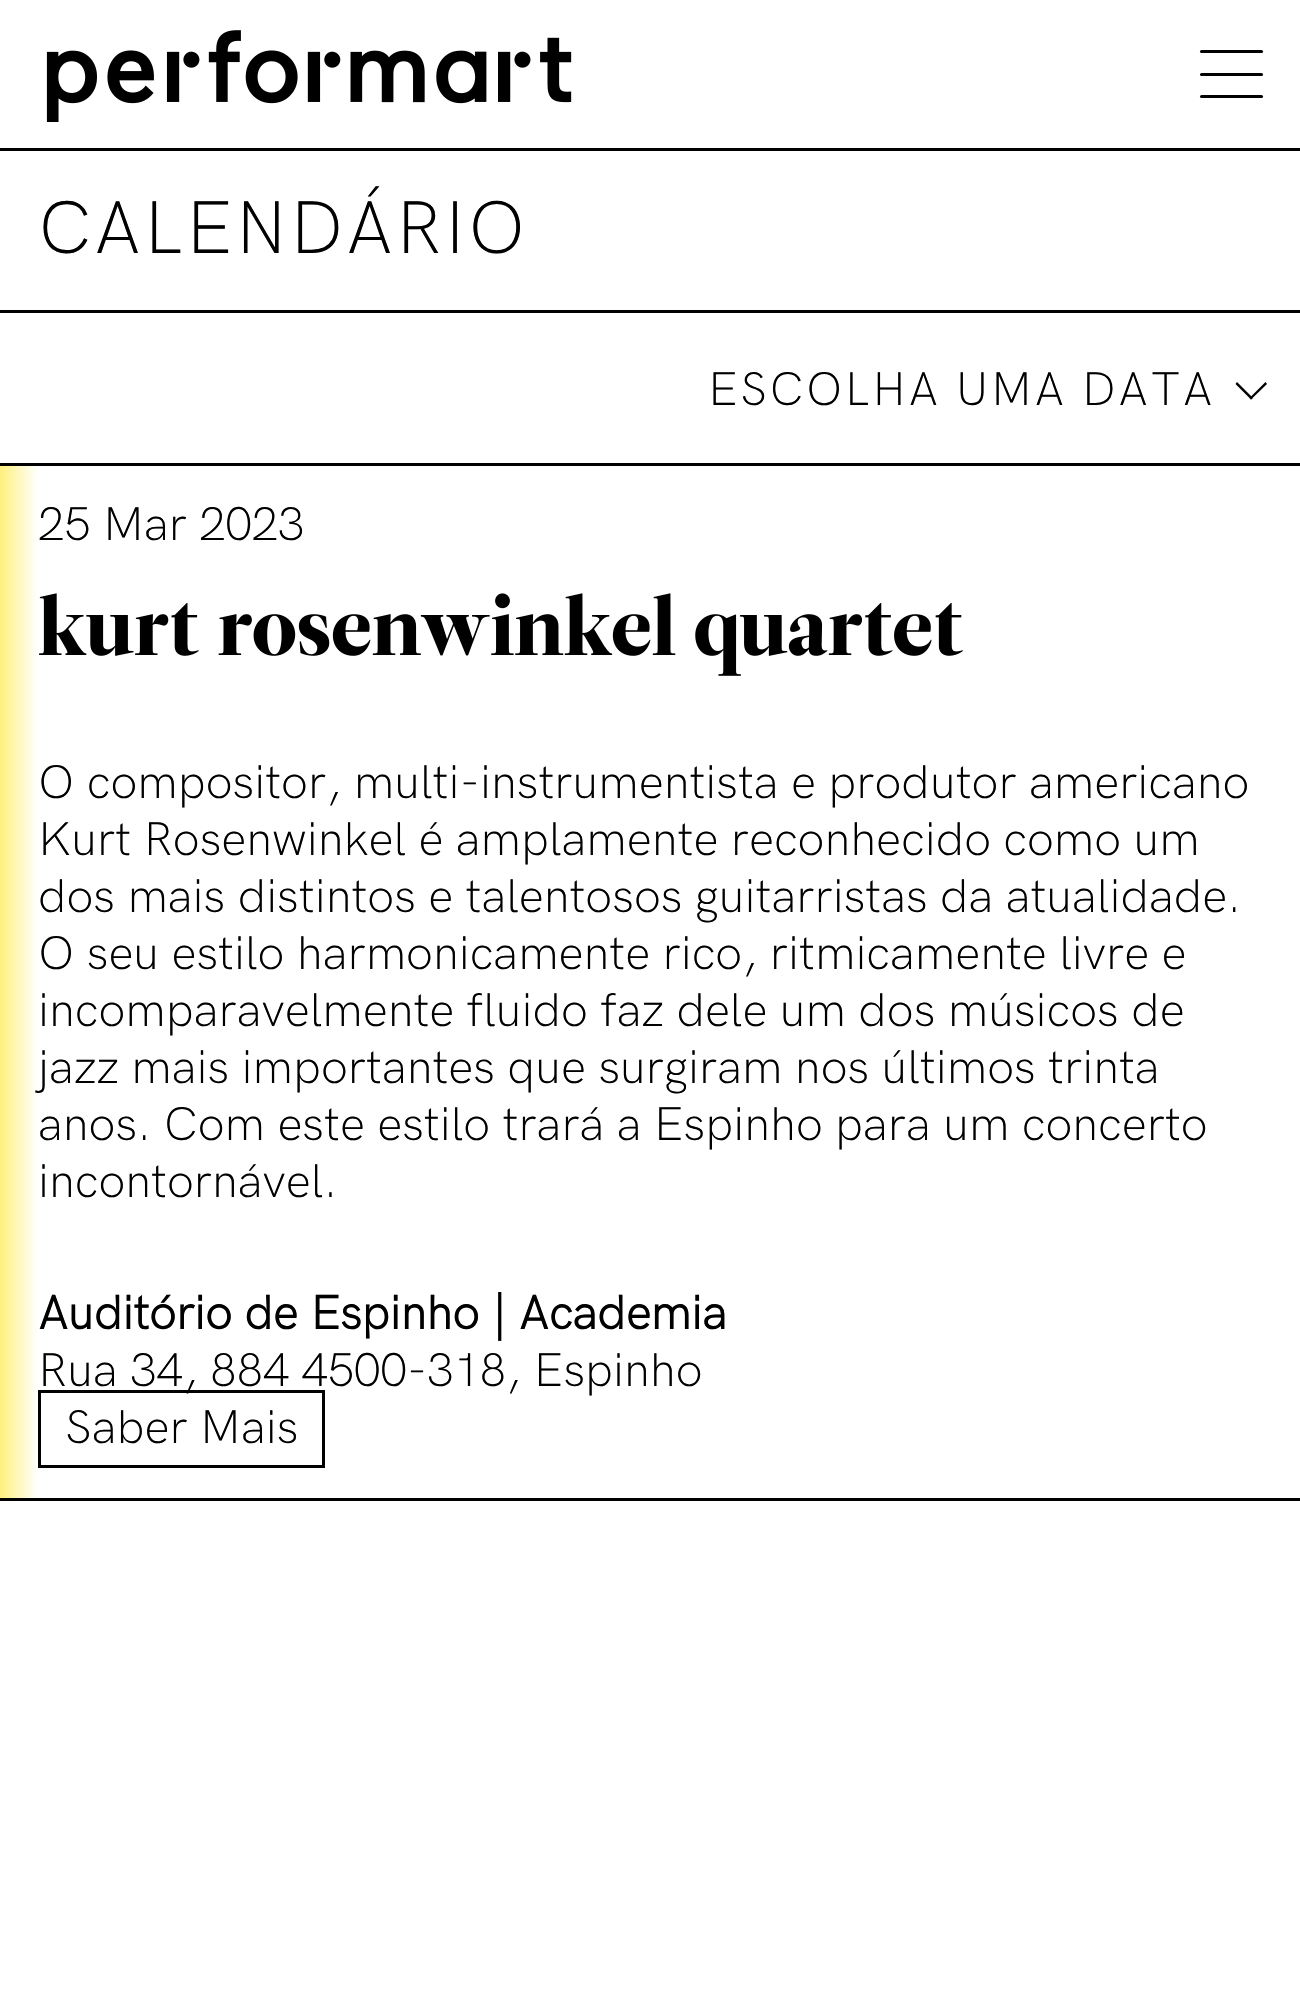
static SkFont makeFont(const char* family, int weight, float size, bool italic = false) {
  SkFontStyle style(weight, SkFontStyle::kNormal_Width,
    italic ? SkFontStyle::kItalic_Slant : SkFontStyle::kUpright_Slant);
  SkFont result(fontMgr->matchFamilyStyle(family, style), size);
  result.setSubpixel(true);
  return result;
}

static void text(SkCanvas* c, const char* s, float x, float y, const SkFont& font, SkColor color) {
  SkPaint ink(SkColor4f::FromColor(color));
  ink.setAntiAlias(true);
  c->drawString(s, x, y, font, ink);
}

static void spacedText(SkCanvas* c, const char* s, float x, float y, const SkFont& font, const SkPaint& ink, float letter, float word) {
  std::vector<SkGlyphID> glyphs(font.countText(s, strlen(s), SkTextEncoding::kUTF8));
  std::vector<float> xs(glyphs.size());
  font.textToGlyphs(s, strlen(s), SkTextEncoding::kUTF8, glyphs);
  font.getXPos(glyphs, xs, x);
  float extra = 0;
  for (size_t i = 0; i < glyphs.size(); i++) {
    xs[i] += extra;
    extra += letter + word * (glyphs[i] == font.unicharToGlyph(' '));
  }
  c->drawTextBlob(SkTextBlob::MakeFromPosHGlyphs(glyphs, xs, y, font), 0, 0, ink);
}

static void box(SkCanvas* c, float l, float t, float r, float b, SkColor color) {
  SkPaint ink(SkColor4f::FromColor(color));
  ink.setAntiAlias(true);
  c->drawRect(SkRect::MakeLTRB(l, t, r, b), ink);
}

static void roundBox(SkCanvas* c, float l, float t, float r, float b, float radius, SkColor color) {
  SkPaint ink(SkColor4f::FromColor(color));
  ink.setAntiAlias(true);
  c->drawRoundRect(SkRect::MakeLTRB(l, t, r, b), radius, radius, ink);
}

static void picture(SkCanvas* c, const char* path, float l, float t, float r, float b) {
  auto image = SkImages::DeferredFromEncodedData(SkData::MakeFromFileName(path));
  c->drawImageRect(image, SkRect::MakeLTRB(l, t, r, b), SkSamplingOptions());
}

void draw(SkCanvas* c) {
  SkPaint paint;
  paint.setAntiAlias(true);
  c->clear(0xffffffff);
  picture(c, "img_01.png", 46, 30, 572, 122);
  roundBox(c, 1200, 73, 1263, 76, 1.5f, 0xff000000);
  roundBox(c, 1200, 50, 1263, 53, 1.5f, 0xff000000);
  roundBox(c, 1200, 95, 1263, 98, 1.5f, 0xff000000);
  box(c, 0, 148, 1300, 151, 0xff000000);
  box(c, 0, 310, 1300, 313, 0xff000000);
  SkFont face1 = makeFont("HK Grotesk", 300, 75);
  paint.setColor(0xff000000);
  spacedText(c, "CALENDÁRIO", 38, 253, face1, paint, 2.5f, 0);
  box(c, 0, 463, 1300, 466, 0xff000000);
  SkFont face2 = makeFont("HK Grotesk", 300, 47.5f);
  spacedText(c, "ESCOLHA UMA DATA", 708, 405, face2, paint, 2.5f, 0);
  c->drawPath(SkPathBuilder().moveTo(1265.5f, 382).lineTo(1267, 384).lineTo(1251, 399.5f).lineTo(1249.5f, 398).close().detach(), paint);
  c->drawPath(SkPathBuilder().moveTo(1237, 382).lineTo(1253, 398).lineTo(1251, 399.5f).lineTo(1235.5f, 384).close().detach(), paint);
  box(c, 0, 1498, 1300, 1501, 0xff000000);
  {
    const SkColor colors[] = {0xfffff07c, 0xffffffff};
    const float stops[] = {0, 1};
    const SkPoint ends[] = {{0, 981}, {38, 981}};
    paint.setShader(SkGradientShader::MakeLinear(ends, colors, stops, 2, SkTileMode::kClamp));
    paint.setAlpha(255);
  }
  c->drawRect(SkRect::MakeLTRB(0, 466, 37, 1498), paint);
  text(c, "25 Mar 2023", 38, 540, face2, 0xff000000);
  picture(c, "img_02.png", 39, 593, 963, 676);
  text(c, "O compositor, multi-instrumentista e produtor americano", 38, 798, face2, 0xff000000);
  text(c, "Kurt Rosenwinkel é amplamente reconhecido como um", 38, 855, face2, 0xff000000);
  text(c, "dos mais distintos e talentosos guitarristas da atualidade.", 38, 912, face2, 0xff000000);
  text(c, "O seu estilo harmonicamente rico, ritmicamente livre e", 38, 969, face2, 0xff000000);
  text(c, "incomparavelmente fluido faz dele um dos músicos de", 38, 1026, face2, 0xff000000);
  text(c, "jazz mais importantes que surgiram nos últimos trinta", 38, 1083, face2, 0xff000000);
  text(c, "anos. Com este estilo trará a Espinho para um concerto", 38, 1140, face2, 0xff000000);
  text(c, "incontornável.", 38, 1197, face2, 0xff000000);
  SkFont face3 = makeFont("HK Grotesk", 700, 47.5f);
  text(c, "Auditório de Espinho | Academia", 38, 1329, face3, 0xff000000);
  text(c, "Rua 34, 884 4500-318, Espinho", 38, 1386, face2, 0xff000000);
  paint.setStyle(SkPaint::kStroke_Style);
  paint.setStrokeWidth(3);
  paint.setShader(nullptr);
  paint.setColor(0xff000000);
  c->drawRect(SkRect::MakeLTRB(39.5f, 1391.5f, 323.5f, 1466.5f), paint);
  text(c, "Saber Mais", 65, 1443, face2, 0xff000000);
}
